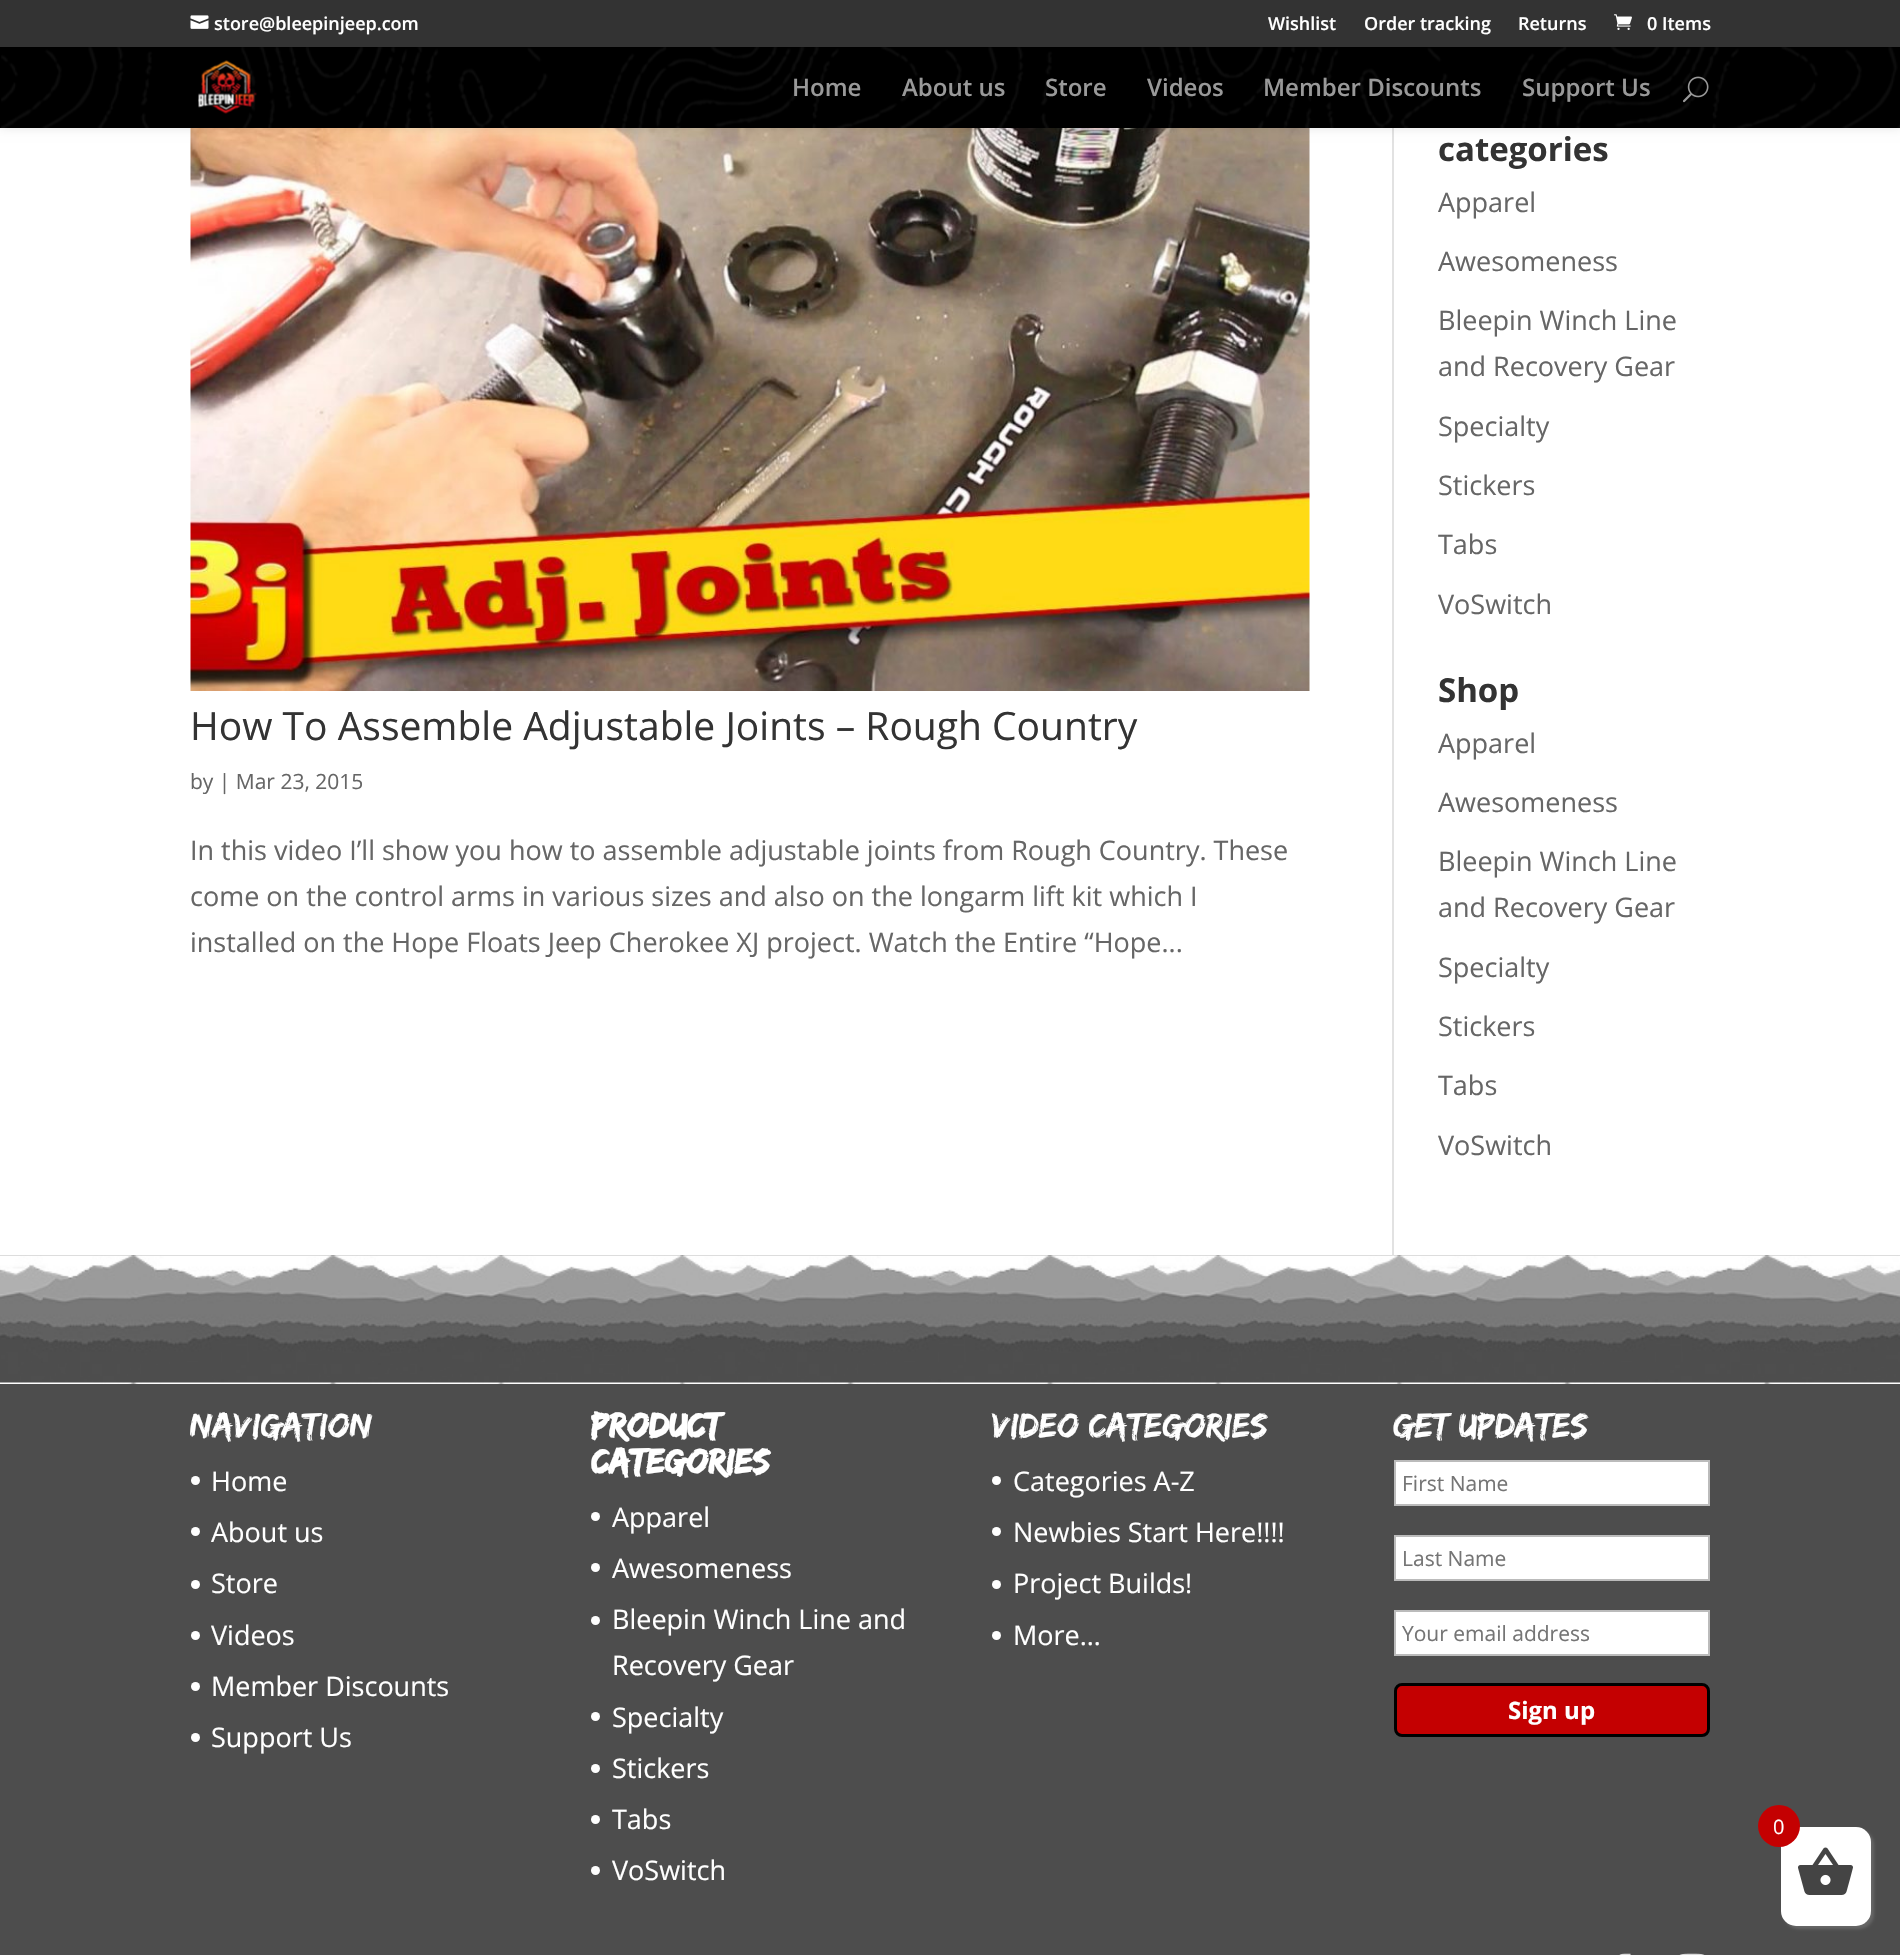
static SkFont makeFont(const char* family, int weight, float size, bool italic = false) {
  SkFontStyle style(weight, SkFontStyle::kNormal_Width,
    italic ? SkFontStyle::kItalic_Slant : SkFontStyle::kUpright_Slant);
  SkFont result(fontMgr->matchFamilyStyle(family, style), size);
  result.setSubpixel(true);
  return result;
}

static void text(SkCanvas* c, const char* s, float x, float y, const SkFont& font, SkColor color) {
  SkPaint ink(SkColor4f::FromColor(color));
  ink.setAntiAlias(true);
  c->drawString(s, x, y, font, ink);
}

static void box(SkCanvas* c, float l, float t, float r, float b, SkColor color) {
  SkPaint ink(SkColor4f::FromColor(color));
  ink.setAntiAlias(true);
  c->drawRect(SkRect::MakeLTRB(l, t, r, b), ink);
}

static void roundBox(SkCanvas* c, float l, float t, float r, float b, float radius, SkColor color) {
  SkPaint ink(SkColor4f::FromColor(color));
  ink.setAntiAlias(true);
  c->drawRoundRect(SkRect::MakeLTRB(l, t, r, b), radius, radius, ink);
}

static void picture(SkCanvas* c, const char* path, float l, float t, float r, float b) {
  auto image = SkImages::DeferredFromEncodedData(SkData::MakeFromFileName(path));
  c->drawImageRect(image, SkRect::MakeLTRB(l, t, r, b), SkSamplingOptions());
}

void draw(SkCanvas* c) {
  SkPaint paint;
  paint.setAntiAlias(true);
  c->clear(0xffffffff);
  picture(c, "img_07.png", 0, 1255, 1900, 1384);
  box(c, 1392, 128, 1394, 1256, 0xffe2e2e2);
  picture(c, "img_06.png", 190, 128, 1310, 691);
  paint.setColor(0x1a000000);
  paint.setMaskFilter(SkMaskFilter::MakeBlur(kNormal_SkBlurStyle, 5));
  c->drawRect(SkRect::MakeLTRB(0, 47, 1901, 128), paint);
  paint.setMaskFilter(nullptr);
  box(c, 0, 0, 1900, 47, 0xff333333);
  picture(c, "img_01.png", 190, 15, 209, 29);
  SkFont face1 = makeFont("Open Sans", 600, 18);
  text(c, "store@bleepinjeep.com", 214, 30, face1, 0xffffffff);
  text(c, "Wishlist", 1268, 30, face1, 0xffffffff);
  text(c, "Order tracking", 1364, 30, face1, 0xffffffff);
  text(c, "Returns", 1518, 30, face1, 0xffffffff);
  picture(c, "img_02.png", 1614, 14, 1632, 30);
  text(c, "0 Items", 1647, 30, face1, 0xffffffff);
  box(c, 0, 47, 1900, 128, 0xff000000);
  picture(c, "img_03.png", 1, 47, 1900, 128);
  picture(c, "img_04.png", 198, 60, 257, 114);
  SkFont face2 = makeFont("Open Sans", 600, 24);
  text(c, "Home", 792, 96, face2, 0xff999999);
  text(c, "About us", 902, 96, face2, 0xff999999);
  text(c, "Store", 1045, 96, face2, 0xff999999);
  text(c, "Videos", 1147, 96, face2, 0xff999999);
  text(c, "Member Discounts", 1263, 96, face2, 0xff999999);
  text(c, "Support Us", 1522, 96, face2, 0xff999999);
  picture(c, "img_05.png", 1683, 76, 1709, 103);
  SkFont face3 = makeFont("Open Sans", 400, 39);
  text(c, "How To Assemble Adjustable Joints – Rough Country", 190, 740, face3, 0xff333333);
  SkFont face4 = makeFont("Open Sans", 400, 21);
  text(c, "by | Mar 23, 2015", 190, 789, face4, 0xff666666);
  SkFont face5 = makeFont("Open Sans", 400, 27);
  text(c, "In this video I’ll show you how to assemble adjustable joints from Rough Country. These", 190, 860, face5, 0xff666666);
  text(c, "come on the control arms in various sizes and also on the longarm lift kit which I", 190, 906, face5, 0xff666666);
  text(c, "installed on the Hope Floats Jeep Cherokee XJ project. Watch the Entire “Hope...", 190, 952, face5, 0xff666666);
  SkFont face6 = makeFont("Open Sans", 700, 33);
  text(c, "categories", 1438, 161, face6, 0xff333333);
  text(c, "Apparel", 1438, 212, face5, 0xff666666);
  text(c, "Awesomeness", 1438, 271, face5, 0xff666666);
  text(c, "Bleepin Winch Line", 1438, 330, face5, 0xff666666);
  text(c, "and Recovery Gear", 1438, 376, face5, 0xff666666);
  text(c, "Specialty", 1438, 436, face5, 0xff666666);
  text(c, "Stickers", 1438, 495, face5, 0xff666666);
  text(c, "Tabs", 1438, 554, face5, 0xff666666);
  text(c, "VoSwitch", 1438, 614, face5, 0xff666666);
  text(c, "Shop", 1438, 702, face6, 0xff333333);
  text(c, "Apparel", 1438, 753, face5, 0xff666666);
  text(c, "Awesomeness", 1438, 812, face5, 0xff666666);
  text(c, "Bleepin Winch Line", 1438, 871, face5, 0xff666666);
  text(c, "and Recovery Gear", 1438, 917, face5, 0xff666666);
  text(c, "Specialty", 1438, 977, face5, 0xff666666);
  text(c, "Stickers", 1438, 1036, face5, 0xff666666);
  text(c, "Tabs", 1438, 1095, face5, 0xff666666);
  text(c, "VoSwitch", 1438, 1155, face5, 0xff666666);
  box(c, 0, 1384, 1900, 1955, 0xff4d4d4d);
  SkFont face7 = makeFont("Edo", 400, 36);
  text(c, "Navigation", 190, 1437, face7, 0xffffffff);
  paint.setColor(0xffffffff);
  c->drawCircle(195.5f, 1480.5f, 4.5f, paint);
  text(c, "Home", 211, 1491, face5, 0xffffffff);
  c->drawCircle(195.5f, 1531.5f, 4.5f, paint);
  text(c, "About us", 211, 1542, face5, 0xffffffff);
  c->drawCircle(195.5f, 1584.5f, 4.5f, paint);
  text(c, "Store", 211, 1593, face5, 0xffffffff);
  c->drawCircle(195.5f, 1635.5f, 4.5f, paint);
  text(c, "Videos", 211, 1645, face5, 0xffffffff);
  c->drawCircle(195.5f, 1686.5f, 4.5f, paint);
  text(c, "Member Discounts", 211, 1696, face5, 0xffffffff);
  c->drawCircle(195.5f, 1737.5f, 4.5f, paint);
  text(c, "Support Us", 211, 1747, face5, 0xffffffff);
  SkFont face8 = makeFont("Edo", 700, 36);
  text(c, "Product", 591, 1437, face8, 0xffffffff);
  text(c, "categories", 591, 1473, face8, 0xffffffff);
  c->drawCircle(595.5f, 1516.5f, 4.5f, paint);
  text(c, "Apparel", 612, 1527, face5, 0xffffffff);
  c->drawCircle(595.5f, 1567.5f, 4.5f, paint);
  text(c, "Awesomeness", 612, 1578, face5, 0xffffffff);
  c->drawCircle(595.5f, 1620.5f, 4.5f, paint);
  text(c, "Bleepin Winch Line and", 612, 1629, face5, 0xffffffff);
  text(c, "Recovery Gear", 612, 1675, face5, 0xffffffff);
  c->drawCircle(595.5f, 1716.5f, 4.5f, paint);
  text(c, "Specialty", 612, 1727, face5, 0xffffffff);
  c->drawCircle(595.5f, 1768.5f, 4.5f, paint);
  text(c, "Stickers", 612, 1778, face5, 0xffffffff);
  c->drawCircle(595.5f, 1819.5f, 4.5f, paint);
  text(c, "Tabs", 612, 1829, face5, 0xffffffff);
  c->drawCircle(595.5f, 1870.5f, 4.5f, paint);
  text(c, "VoSwitch", 612, 1880, face5, 0xffffffff);
  text(c, "Video Categories", 992, 1437, face7, 0xffffffff);
  c->drawCircle(996.5f, 1480.5f, 4.5f, paint);
  text(c, "Categories A-Z", 1013, 1491, face5, 0xffffffff);
  c->drawCircle(996.5f, 1531.5f, 4.5f, paint);
  text(c, "Newbies Start Here!!!!", 1013, 1542, face5, 0xffffffff);
  c->drawCircle(996.5f, 1584.5f, 4.5f, paint);
  text(c, "Project Builds!", 1013, 1593, face5, 0xffffffff);
  c->drawCircle(996.5f, 1635.5f, 4.5f, paint);
  text(c, "More…", 1013, 1645, face5, 0xffffffff);
  text(c, "Get Updates", 1393, 1437, face7, 0xffffffff);
  c->drawRect(SkRect::MakeLTRB(1395, 1461, 1709, 1505), paint);
  paint.setStyle(SkPaint::kStroke_Style);
  paint.setStrokeWidth(2);
  paint.setColor(0xffbbbbbb);
  c->drawRect(SkRect::MakeLTRB(1395, 1461, 1709, 1505), paint);
  text(c, "First Name", 1402, 1491, face4, 0xff757575);
  paint.setStyle(SkPaint::kFill_Style);
  paint.setColor(0xffffffff);
  c->drawRect(SkRect::MakeLTRB(1395, 1536, 1709, 1580), paint);
  paint.setStyle(SkPaint::kStroke_Style);
  paint.setColor(0xffbbbbbb);
  c->drawRect(SkRect::MakeLTRB(1395, 1536, 1709, 1580), paint);
  text(c, "Last Name", 1402, 1566, face4, 0xff757575);
  paint.setStyle(SkPaint::kFill_Style);
  paint.setColor(0xffffffff);
  c->drawRect(SkRect::MakeLTRB(1395, 1611, 1709, 1655), paint);
  paint.setStyle(SkPaint::kStroke_Style);
  paint.setColor(0xffbbbbbb);
  c->drawRect(SkRect::MakeLTRB(1395, 1611, 1709, 1655), paint);
  text(c, "Your email address", 1402, 1641, face4, 0xff757575);
  paint.setStyle(SkPaint::kFill_Style);
  paint.setColor(0xffc40001);
  c->drawRoundRect(SkRect::MakeLTRB(1395.5f, 1684.5f, 1708.5f, 1735.5f), 6.5f, 6.5f, paint);
  paint.setStyle(SkPaint::kStroke_Style);
  paint.setStrokeWidth(3);
  paint.setColor(0xff000000);
  c->drawRoundRect(SkRect::MakeLTRB(1395.5f, 1684.5f, 1708.5f, 1735.5f), 6.5f, 6.5f, paint);
  SkFont face9 = makeFont("Open Sans", 700, 24);
  text(c, "Sign up", 1508, 1719, face9, 0xffffffff);
  picture(c, "img_08.png", 1619, 1953, 1631, 1955);
  picture(c, "img_09.png", 1679, 1953, 1705, 1955);
  paint.setStyle(SkPaint::kFill_Style);
  paint.setColor(0xff666666);
  paint.setMaskFilter(SkMaskFilter::MakeBlur(kNormal_SkBlurStyle, 1.5f));
  c->drawRoundRect(SkRect::MakeLTRB(1784, 1830, 1874, 1929), 15, 15, paint);
  paint.setMaskFilter(nullptr);
  roundBox(c, 1781, 1827, 1871, 1926, 15, 0xffffffff);
  paint.setColor(0xffc40001);
  c->drawCircle(1779, 1826, 21, paint);
  SkFont face10 = makeFont("Open Sans", 400, 20);
  text(c, "0", 1773, 1834, face10, 0xffffffff);
  picture(c, "img_10.png", 1798, 1847, 1853, 1895);
}
